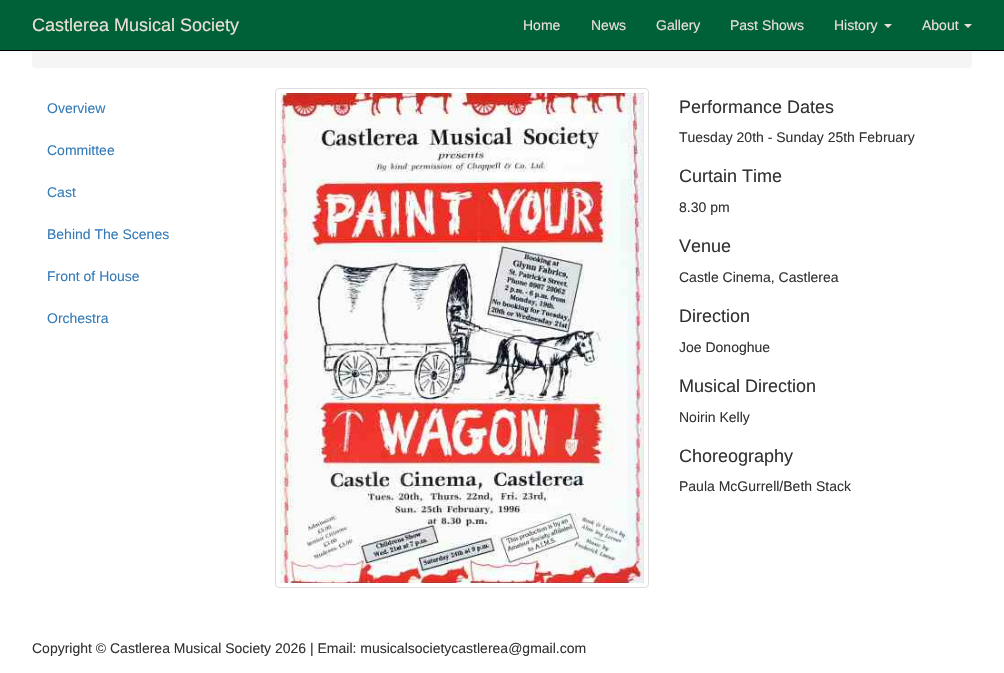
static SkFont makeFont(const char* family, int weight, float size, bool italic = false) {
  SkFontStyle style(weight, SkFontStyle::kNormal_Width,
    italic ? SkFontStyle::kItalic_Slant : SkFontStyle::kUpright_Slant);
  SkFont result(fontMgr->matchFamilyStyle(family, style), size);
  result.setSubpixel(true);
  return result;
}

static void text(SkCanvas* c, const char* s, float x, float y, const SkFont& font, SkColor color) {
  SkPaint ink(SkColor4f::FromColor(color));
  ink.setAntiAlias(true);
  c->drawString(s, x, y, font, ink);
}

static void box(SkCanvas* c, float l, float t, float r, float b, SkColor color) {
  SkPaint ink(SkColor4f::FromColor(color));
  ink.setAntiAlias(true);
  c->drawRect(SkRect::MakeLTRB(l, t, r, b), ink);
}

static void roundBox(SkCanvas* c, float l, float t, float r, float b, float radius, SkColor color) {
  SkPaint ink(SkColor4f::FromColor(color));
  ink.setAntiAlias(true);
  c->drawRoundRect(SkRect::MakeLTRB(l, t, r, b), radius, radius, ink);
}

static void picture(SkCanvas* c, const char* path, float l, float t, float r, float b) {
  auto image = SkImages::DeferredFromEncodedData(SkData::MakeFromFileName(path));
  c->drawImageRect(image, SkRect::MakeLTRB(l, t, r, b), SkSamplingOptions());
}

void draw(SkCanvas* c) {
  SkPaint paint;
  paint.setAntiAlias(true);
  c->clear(0xffffffff);
  roundBox(c, 32, 32, 972, 68, 4, 0xfff5f5f5);
  box(c, 0, 0, 1004, 50, 0xff006037);
  box(c, 0, 50, 1004, 51, 0xff000000);
  SkFont face1 = makeFont("Liberation Sans", 400, 18);
  text(c, "Castlerea Musical Society", 32, 31, face1, 0xffe9e0d6);
  SkFont face2 = makeFont("Liberation Sans", 400, 14);
  text(c, "Home", 523, 30, face2, 0xffe9e0d6);
  text(c, "News", 591, 30, face2, 0xffe9e0d6);
  text(c, "Gallery", 656, 30, face2, 0xffe9e0d6);
  text(c, "Past Shows", 730, 30, face2, 0xffe9e0d6);
  text(c, "History", 834, 30, face2, 0xffe9e0d6);
  paint.setColor(0xffe9e0d6);
  c->drawPath(SkPathBuilder().moveTo(884, 24).lineTo(892, 24).lineTo(888, 28).close().detach(), paint);
  text(c, "About", 922, 30, face2, 0xffe9e0d6);
  c->drawPath(SkPathBuilder().moveTo(964, 24).lineTo(972, 24).lineTo(968, 28).close().detach(), paint);
  text(c, "Overview", 47, 113, face2, 0xff337ab7);
  text(c, "Committee", 47, 155, face2, 0xff337ab7);
  text(c, "Cast", 47, 197, face2, 0xff337ab7);
  text(c, "Behind The Scenes", 47, 239, face2, 0xff337ab7);
  text(c, "Front of House", 47, 281, face2, 0xff337ab7);
  text(c, "Orchestra", 47, 323, face2, 0xff337ab7);
  paint.setStyle(SkPaint::kStroke_Style);
  paint.setStrokeWidth(1);
  paint.setColor(0xffdddddd);
  c->drawRoundRect(SkRect::MakeLTRB(275.5f, 88.5f, 648.5f, 587.5f), 3.5f, 3.5f, paint);
  picture(c, "img_01.png", 280, 93, 644, 583);
  text(c, "Performance Dates", 679, 113, face1, 0xff333333);
  text(c, "Tuesday 20th - Sunday 25th February", 679, 142, face2, 0xff333333);
  text(c, "Curtain Time", 679, 182, face1, 0xff333333);
  text(c, "8.30 pm", 679, 212, face2, 0xff333333);
  text(c, "Venue", 679, 252, face1, 0xff333333);
  text(c, "Castle Cinema, Castlerea", 679, 282, face2, 0xff333333);
  text(c, "Direction", 679, 322, face1, 0xff333333);
  text(c, "Joe Donoghue", 679, 352, face2, 0xff333333);
  text(c, "Musical Direction", 679, 392, face1, 0xff333333);
  text(c, "Noirin Kelly", 679, 422, face2, 0xff333333);
  text(c, "Choreography", 679, 462, face1, 0xff333333);
  text(c, "Paula McGurrell/Beth Stack", 679, 491, face2, 0xff333333);
  text(c, "Copyright © Castlerea Musical Society 2026 | Email: musicalsocietycastlerea@gmail.com", 32, 653, face2, 0xff333333);
}
